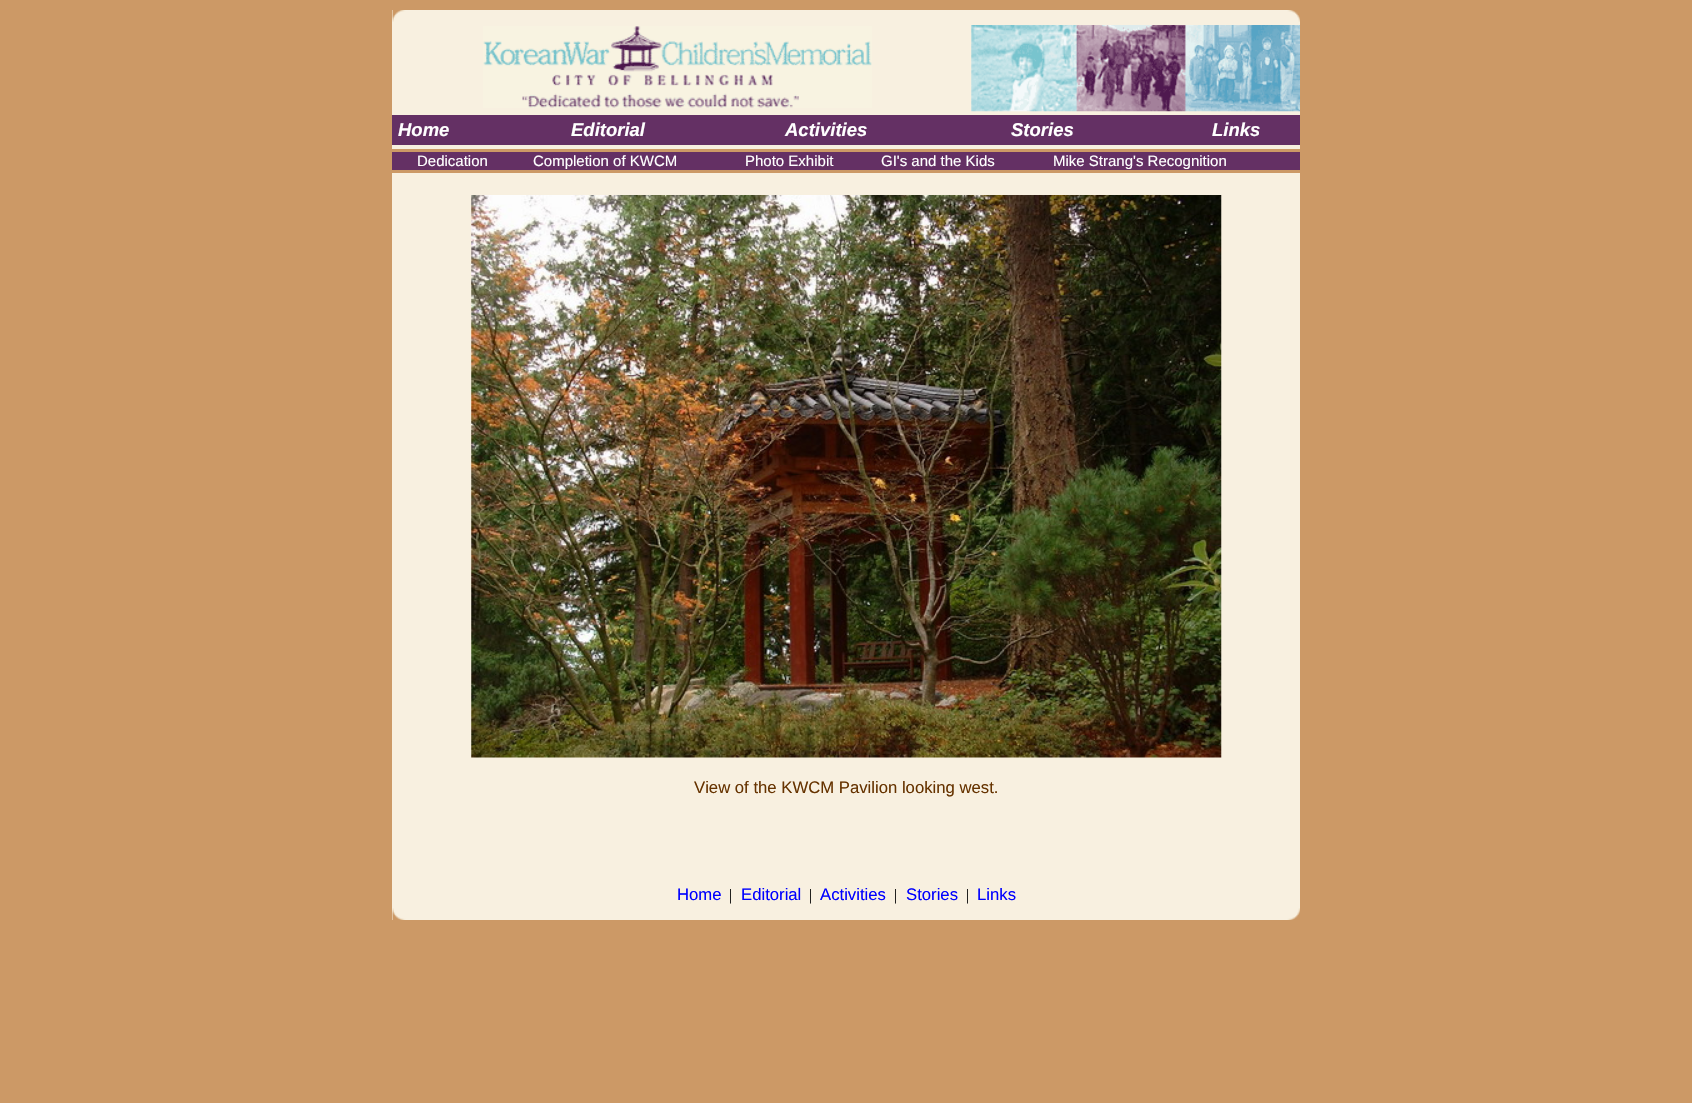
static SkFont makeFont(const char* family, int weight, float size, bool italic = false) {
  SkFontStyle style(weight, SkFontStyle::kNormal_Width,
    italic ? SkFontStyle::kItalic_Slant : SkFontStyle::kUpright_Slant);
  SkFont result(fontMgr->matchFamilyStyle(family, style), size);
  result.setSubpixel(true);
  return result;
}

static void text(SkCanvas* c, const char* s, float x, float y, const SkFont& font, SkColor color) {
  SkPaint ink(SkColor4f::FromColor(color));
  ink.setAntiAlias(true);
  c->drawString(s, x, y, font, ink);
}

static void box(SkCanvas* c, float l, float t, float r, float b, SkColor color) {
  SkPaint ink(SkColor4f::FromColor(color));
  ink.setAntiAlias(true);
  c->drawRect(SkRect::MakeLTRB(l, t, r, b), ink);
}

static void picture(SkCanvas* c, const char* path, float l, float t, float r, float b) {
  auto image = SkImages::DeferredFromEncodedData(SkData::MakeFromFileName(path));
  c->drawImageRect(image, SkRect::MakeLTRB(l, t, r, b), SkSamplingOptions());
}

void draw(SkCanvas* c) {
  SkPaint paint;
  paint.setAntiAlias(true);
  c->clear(0xffcc9966);
  box(c, 392, 10, 1300, 149, 0xfff8f0e0);
  picture(c, "img_01.png", 392, 10, 1300, 22);
  picture(c, "img_02.png", 483, 26, 872, 108);
  picture(c, "img_03.png", 971, 25, 1300, 112);
  box(c, 392, 115, 1300, 145, 0xff643064);
  SkFont face1 = makeFont("Liberation Sans", 700, 18.5f, true);
  text(c, "Home", 398, 136, face1, 0xffffffff);
  text(c, "Editorial", 571, 136, face1, 0xffffffff);
  text(c, "Activities", 785, 136, face1, 0xffffffff);
  text(c, "Stories", 1011, 136, face1, 0xffffffff);
  text(c, "Links", 1212, 136, face1, 0xffffffff);
  box(c, 392, 152, 1300, 170, 0xff643064);
  SkFont face2 = makeFont("Liberation Sans", 400, 15);
  text(c, "Dedication", 417, 166, face2, 0xffffffff);
  text(c, "Completion of KWCM", 533, 166, face2, 0xffffffff);
  text(c, "Photo Exhibit", 745, 166, face2, 0xffffffff);
  text(c, "GI's and the Kids", 881, 166, face2, 0xffffffff);
  text(c, "Mike Strang's Recognition", 1053, 166, face2, 0xffffffff);
  box(c, 392, 173, 1300, 920, 0xfff8f0e0);
  picture(c, "img_04.png", 471, 195, 1222, 758);
  SkFont face3 = makeFont("Liberation Sans", 400, 16.7f);
  text(c, "View of the KWCM Pavilion looking west.", 694, 793, face3, 0xff663300);
  text(c, "Home", 677, 900, face3, 0xff0000ff);
  SkFont face4 = makeFont("Liberation Serif", 400, 16);
  text(c, "|", 729, 900, face4, 0xff000000);
  text(c, "Editorial", 741, 900, face3, 0xff0000ff);
  text(c, "|", 809, 900, face4, 0xff000000);
  text(c, "Activities", 820, 900, face3, 0xff0000ff);
  text(c, "|", 894, 900, face4, 0xff000000);
  text(c, "Stories", 906, 900, face3, 0xff0000ff);
  text(c, "|", 966, 900, face4, 0xff000000);
  text(c, "Links", 977, 900, face3, 0xff0000ff);
  picture(c, "img_05.png", 392, 908, 1300, 920);
}
